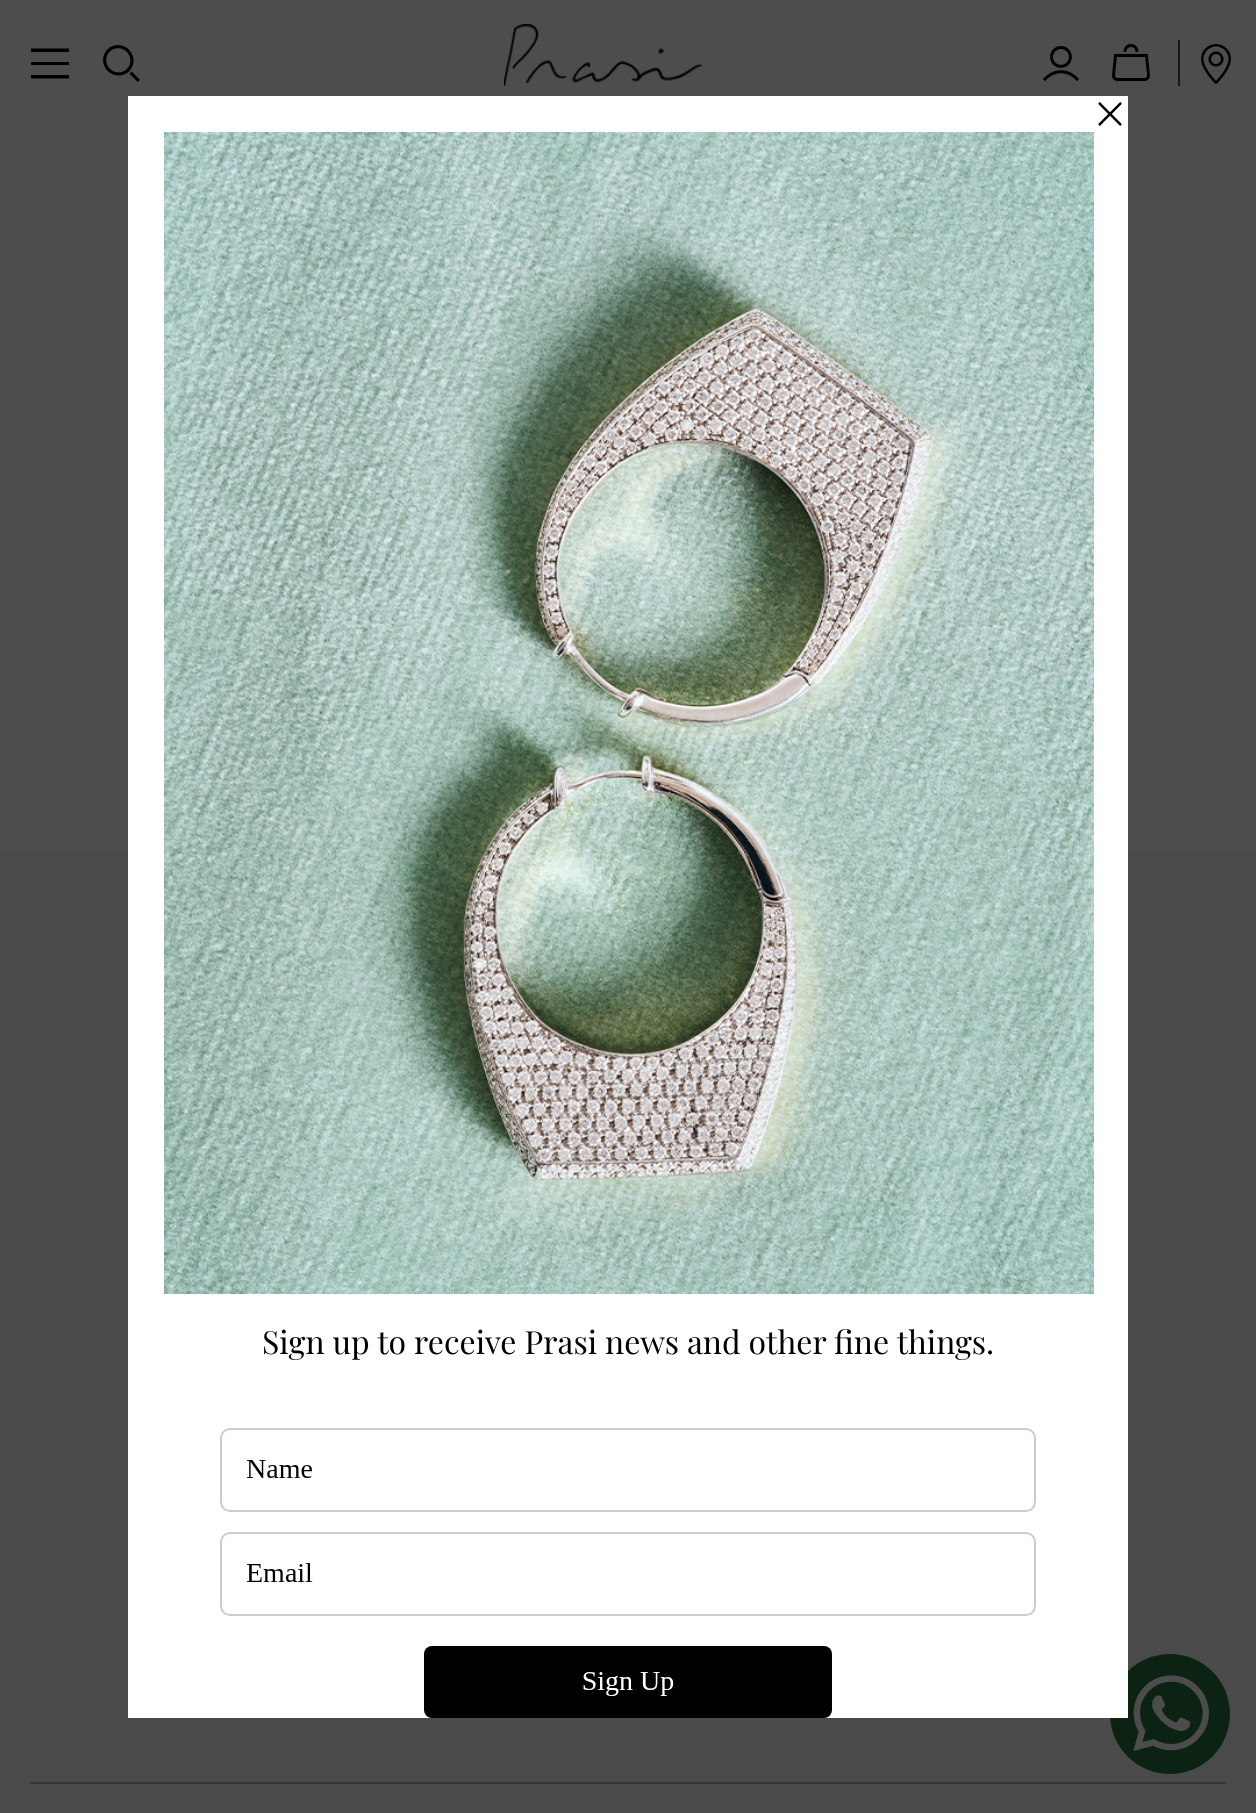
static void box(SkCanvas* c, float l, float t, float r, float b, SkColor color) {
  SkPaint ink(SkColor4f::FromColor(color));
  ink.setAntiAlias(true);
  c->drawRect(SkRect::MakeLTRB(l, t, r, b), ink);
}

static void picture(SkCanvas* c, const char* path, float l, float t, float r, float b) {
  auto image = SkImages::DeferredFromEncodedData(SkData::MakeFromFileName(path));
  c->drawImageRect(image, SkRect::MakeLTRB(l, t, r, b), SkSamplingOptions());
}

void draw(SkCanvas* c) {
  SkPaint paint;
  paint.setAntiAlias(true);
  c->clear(0xff4d4d4d);
  picture(c, "img_01.png", 504, 24, 702, 86);
  paint.setColor(0xff000000);
  c->drawPath(SkPathBuilder(SkPathFillType::kEvenOdd).moveTo(69, 52).lineTo(31, 52).lineTo(31, 48.5f).lineTo(69, 48.5f).close().moveTo(69, 65).lineTo(31, 65).lineTo(31, 62).lineTo(69, 62).close().moveTo(31, 78.5f).lineTo(69, 78.5f).lineTo(69, 75).lineTo(31, 75).close().detach(), paint);
  picture(c, "img_02.png", 103, 45, 140, 82);
  picture(c, "img_03.png", 1042, 46, 1079, 81);
  picture(c, "img_04.png", 1112, 44, 1150, 81);
  box(c, 1178, 40, 1180, 86, 0xff171a19);
  picture(c, "img_05.png", 1201, 44, 1231, 84);
  box(c, 0, 852, 1256, 1813, 0xff4a4a4a);
  paint.setColor(0xff0c2313);
  c->drawCircle(1170, 1714, 60, paint);
  picture(c, "img_06.png", 128, 96, 1128, 1718);
  box(c, 30, 1782, 1226, 1784, 0xff343534);
  picture(c, "img_07.png", 1133, 1675, 1209, 1751);
}
